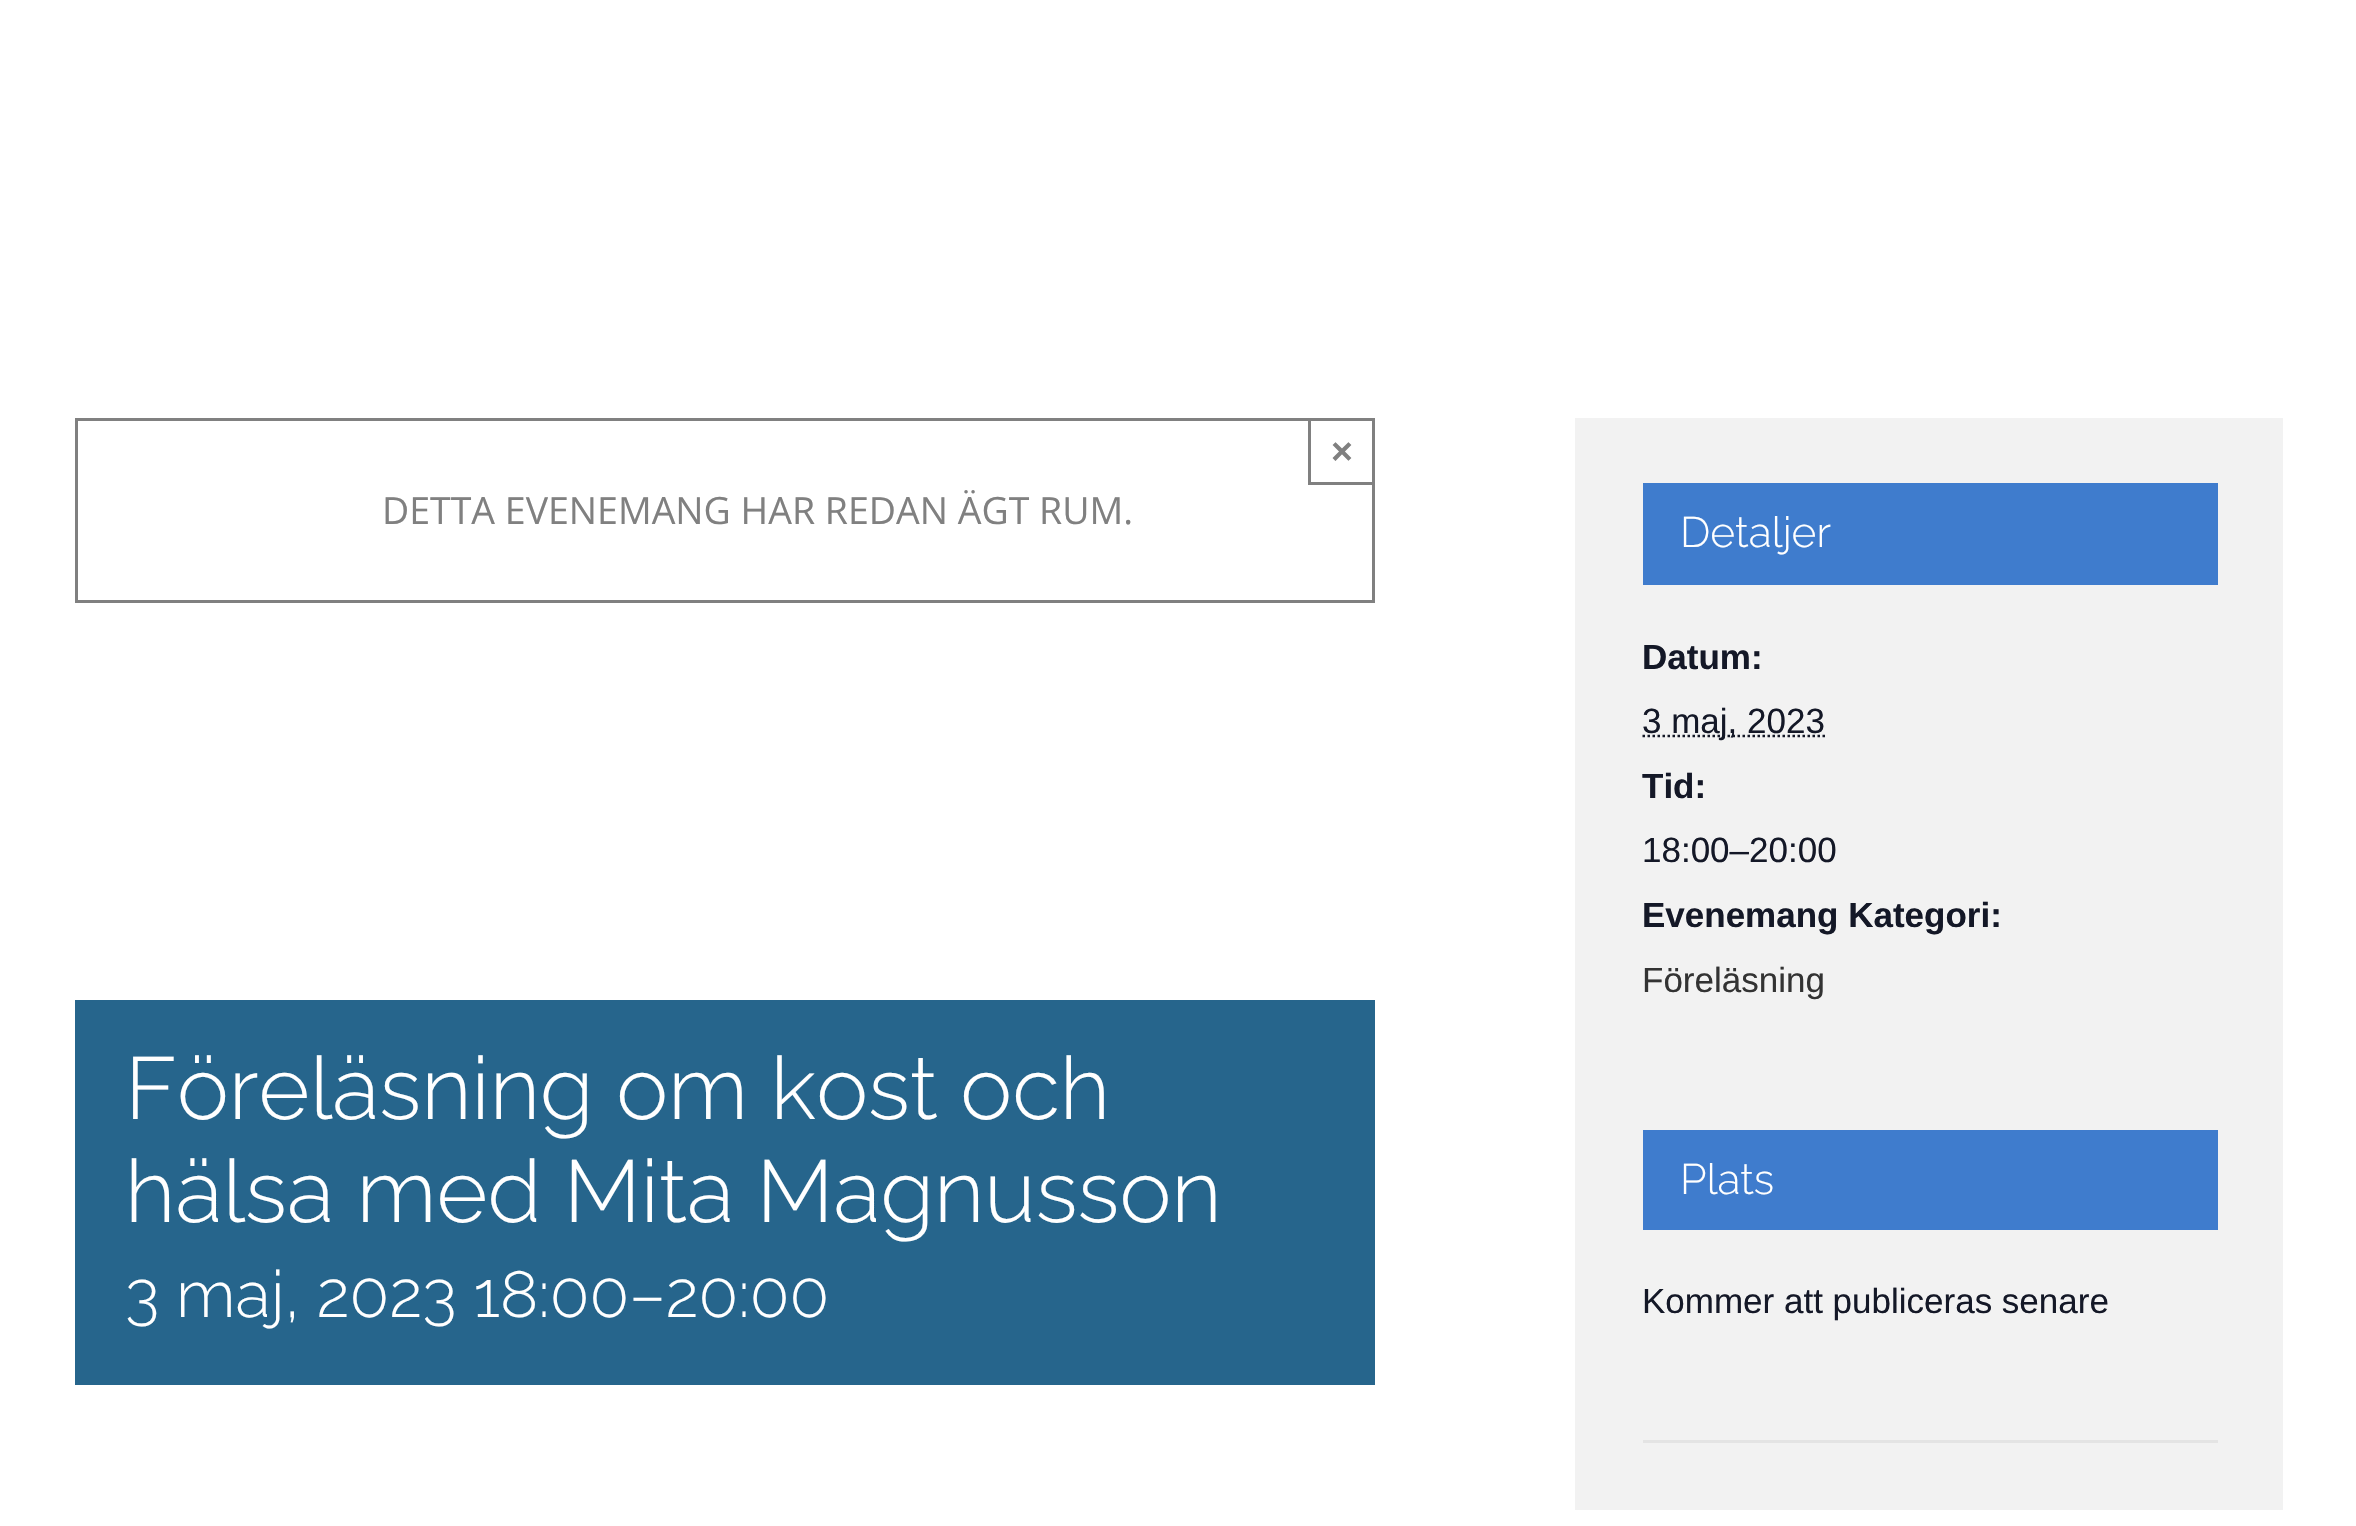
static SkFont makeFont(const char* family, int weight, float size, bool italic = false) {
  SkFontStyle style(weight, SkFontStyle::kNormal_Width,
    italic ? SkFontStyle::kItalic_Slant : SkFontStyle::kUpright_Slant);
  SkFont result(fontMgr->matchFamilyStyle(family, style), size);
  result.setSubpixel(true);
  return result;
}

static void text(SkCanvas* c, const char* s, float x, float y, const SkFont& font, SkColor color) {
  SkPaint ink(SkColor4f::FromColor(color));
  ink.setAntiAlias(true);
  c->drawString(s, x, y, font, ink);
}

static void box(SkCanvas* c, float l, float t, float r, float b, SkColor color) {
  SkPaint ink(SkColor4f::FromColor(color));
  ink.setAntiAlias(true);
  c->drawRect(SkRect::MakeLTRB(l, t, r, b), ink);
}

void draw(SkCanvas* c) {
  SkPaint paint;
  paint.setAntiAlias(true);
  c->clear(0xffffffff);
  paint.setStyle(SkPaint::kStroke_Style);
  paint.setStrokeWidth(3);
  paint.setColor(0xff808080);
  c->drawRect(SkRect::MakeLTRB(76.5f, 419.5f, 1373.5f, 601.5f), paint);
  c->drawRect(SkRect::MakeLTRB(1309.5f, 419.5f, 1373.5f, 483.5f), paint);
  SkFont face1 = makeFont("Liberation Sans", 700, 37.5f);
  text(c, "×", 1331, 464, face1, 0xff808080);
  SkFont face2 = makeFont("Open Sans", 400, 37.5f);
  text(c, "DETTA EVENEMANG HAR REDAN ÄGT RUM.", 382, 524, face2, 0xff808080);
  box(c, 75, 1000, 1375, 1385, 0xff26658c);
  SkFont face3 = makeFont("Raleway", 300, 87.5f);
  text(c, "Föreläsning om kost och", 125, 1119, face3, 0xffffffff);
  text(c, "hälsa med Mita Magnusson", 125, 1222, face3, 0xffffffff);
  SkFont face4 = makeFont("Raleway", 300, 65);
  text(c, "3 maj, 2023 18:00–20:00", 125, 1317, face4, 0xffffffff);
  box(c, 1575, 418, 2283, 1510, 0xfff2f2f2);
  box(c, 1643, 483, 2218, 585, 0xff3f7ccd);
  SkFont face5 = makeFont("Raleway", 300, 42.5f);
  text(c, "Detaljer", 1680, 547, face5, 0xffffffff);
  SkFont face6 = makeFont("Liberation Sans", 700, 35);
  text(c, "Datum:", 1642, 669, face6, 0xff141827);
  paint.setStrokeWidth(2.5f);
  paint.setColor(0xff141827);
  paint.setPathEffect(SkDashPathEffect::Make({{2.5f, 2.5f}}, 0));
  c->drawPath(SkPathBuilder().moveTo(1642.5f, 736).lineTo(1825.5f, 736).detach(), paint);
  paint.setPathEffect(nullptr);
  SkFont face7 = makeFont("Liberation Sans", 400, 35);
  text(c, "3 maj, 2023", 1642, 733, face7, 0xff141827);
  text(c, "Tid:", 1642, 798, face6, 0xff141827);
  text(c, "18:00–20:00", 1642, 862, face7, 0xff141827);
  text(c, "Evenemang Kategori:", 1642, 927, face6, 0xff141827);
  text(c, "Föreläsning", 1642, 992, face7, 0xff333333);
  box(c, 1643, 1130, 2218, 1230, 0xff3f7ccd);
  text(c, "Plats", 1680, 1194, face5, 0xffffffff);
  text(c, "Kommer att publiceras senare", 1642, 1313, face7, 0xff141827);
  box(c, 1643, 1440, 2218, 1443, 0xffe4e4e4);
}
